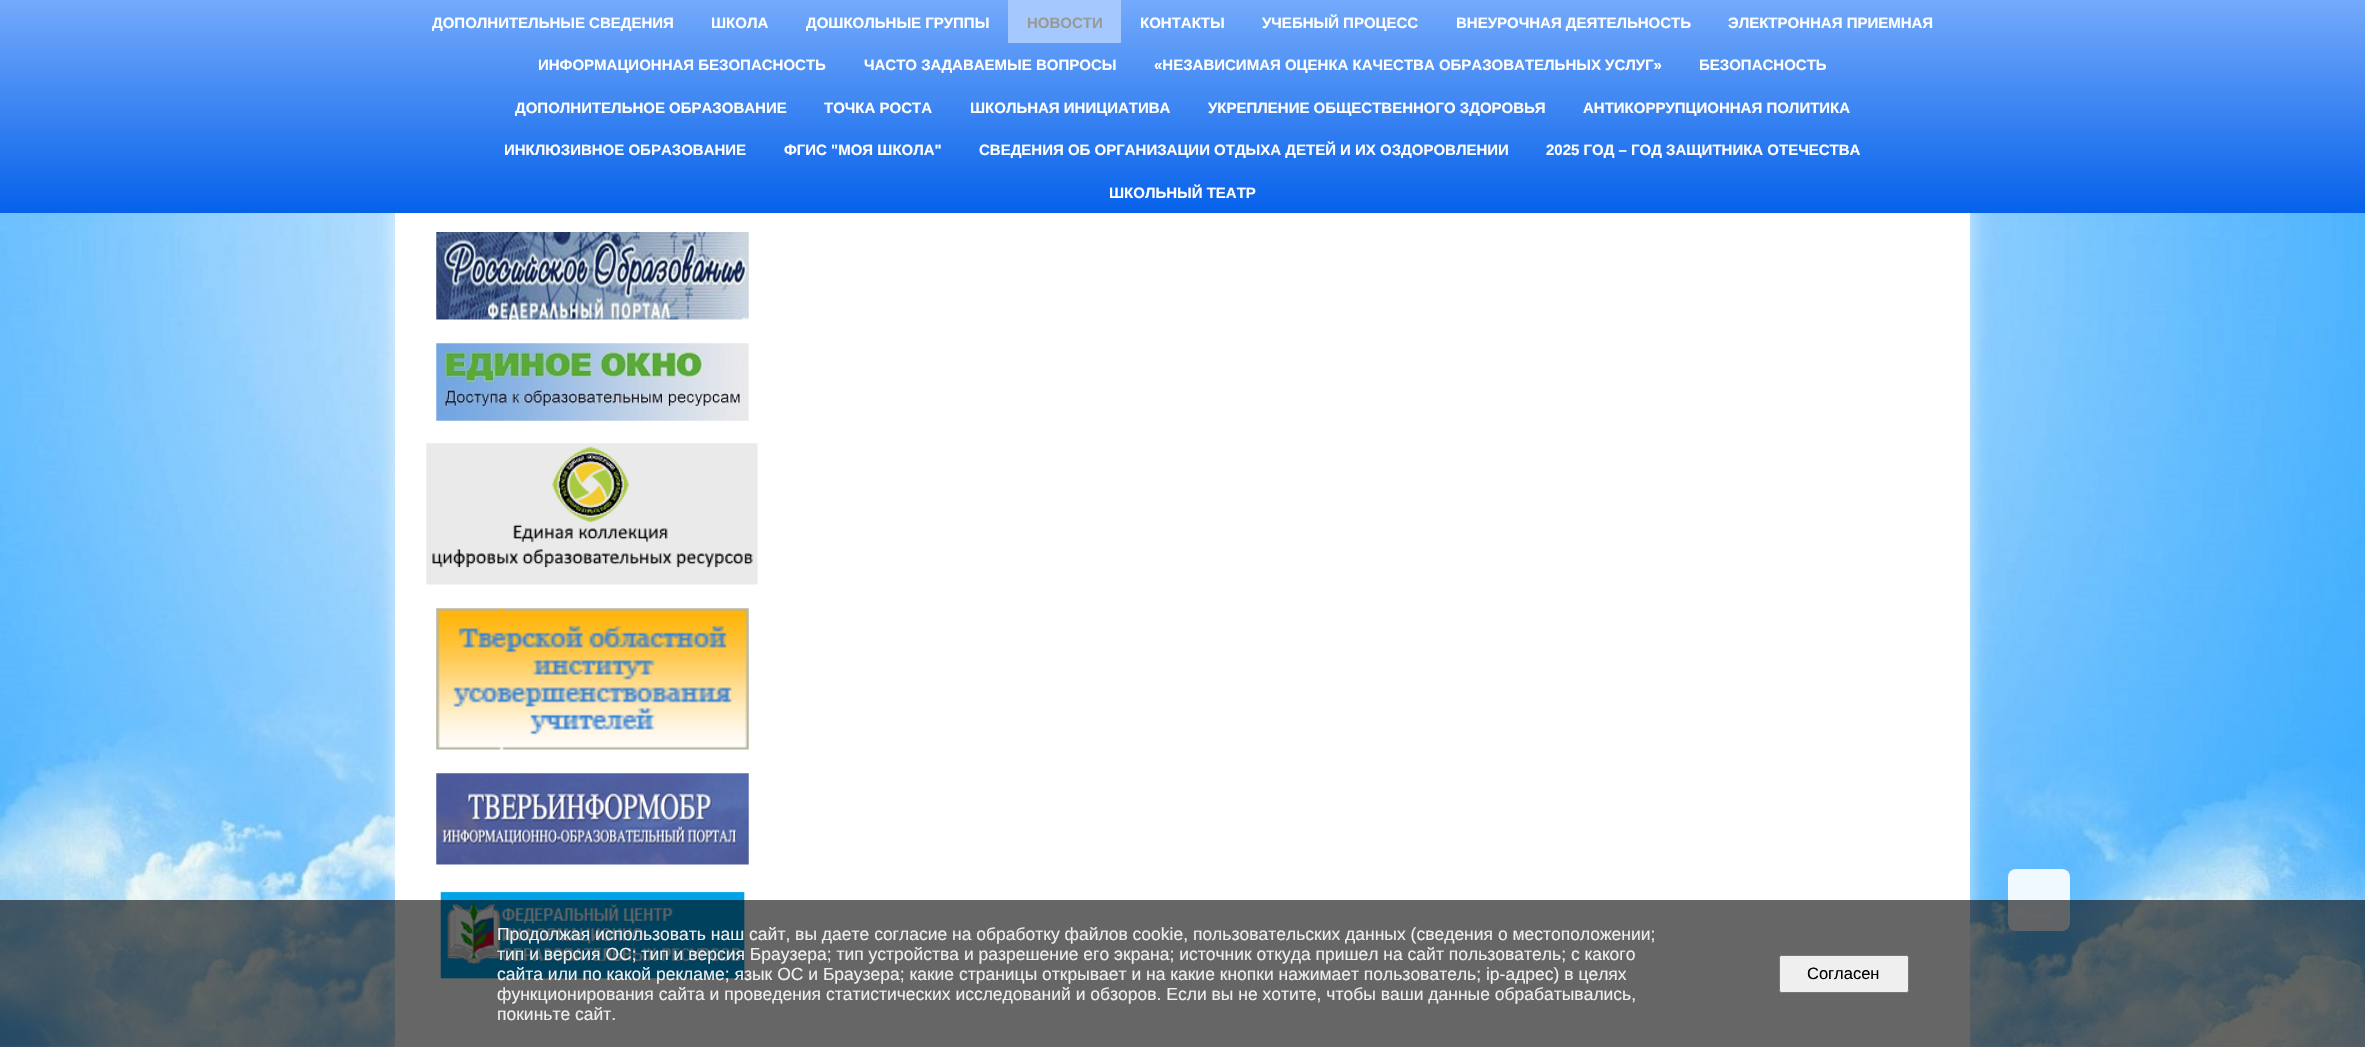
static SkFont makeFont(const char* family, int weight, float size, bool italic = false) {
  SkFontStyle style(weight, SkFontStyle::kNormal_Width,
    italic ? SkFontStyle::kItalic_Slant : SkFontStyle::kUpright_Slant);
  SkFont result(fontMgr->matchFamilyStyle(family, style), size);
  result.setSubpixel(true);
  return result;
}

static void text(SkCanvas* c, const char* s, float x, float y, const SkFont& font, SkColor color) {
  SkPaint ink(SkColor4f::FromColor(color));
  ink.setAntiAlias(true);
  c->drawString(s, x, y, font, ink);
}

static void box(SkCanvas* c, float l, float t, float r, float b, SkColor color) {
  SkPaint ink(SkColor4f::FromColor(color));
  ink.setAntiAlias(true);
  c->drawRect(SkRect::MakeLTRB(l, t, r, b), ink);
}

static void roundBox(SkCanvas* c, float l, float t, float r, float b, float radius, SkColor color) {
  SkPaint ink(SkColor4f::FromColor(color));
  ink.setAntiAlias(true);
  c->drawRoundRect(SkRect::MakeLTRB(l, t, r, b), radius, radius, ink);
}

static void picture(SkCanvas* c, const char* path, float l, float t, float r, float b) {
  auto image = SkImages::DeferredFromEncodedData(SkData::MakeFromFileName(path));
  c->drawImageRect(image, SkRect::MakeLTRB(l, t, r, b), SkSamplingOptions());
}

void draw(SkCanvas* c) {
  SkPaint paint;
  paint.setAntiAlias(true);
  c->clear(0xffffffff);
  picture(c, "img_01.png", 0, 213, 2365, 1047);
  paint.setColor(0x99ffffff);
  paint.setMaskFilter(SkMaskFilter::MakeBlur(kNormal_SkBlurStyle, 9));
  c->drawRect(SkRect::MakeLTRB(395, -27, 1970, 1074), paint);
  paint.setMaskFilter(nullptr);
  box(c, 395, 213, 1970, 1047, 0xffffffff);
  picture(c, "img_02.png", 436, 232, 749, 320);
  picture(c, "img_03.png", 436, 343, 749, 421);
  picture(c, "img_04.png", 426, 443, 758, 585);
  picture(c, "img_05.png", 436, 608, 749, 750);
  picture(c, "img_06.png", 436, 773, 749, 865);
  picture(c, "img_07.png", 440, 891, 745, 979);
  {
    const SkColor colors[] = {0xff74aafb, 0xff0661ea};
    const float stops[] = {0, 1};
    const SkPoint ends[] = {{1183, 0}, {1183, 213}};
    paint.setShader(SkGradientShader::MakeLinear(ends, colors, stops, 2, SkTileMode::kClamp));
    paint.setAlpha(255);
  }
  c->drawRect(SkRect::MakeLTRB(0, 0, 2365, 213), paint);
  SkFont face1 = makeFont("Liberation Sans", 700, 15);
  text(c, "ДОПОЛНИТЕЛЬНЫЕ СВЕДЕНИЯ", 432, 28, face1, 0xffffffff);
  text(c, "ШКОЛА", 711, 28, face1, 0xffffffff);
  text(c, "ДОШКОЛЬНЫЕ ГРУППЫ", 806, 28, face1, 0xffffffff);
  box(c, 1008, 0, 1121, 43, 0xffa5c8fd);
  text(c, "НОВОСТИ", 1027, 28, face1, 0xff999999);
  text(c, "КОНТАКТЫ", 1140, 28, face1, 0xffffffff);
  text(c, "УЧЕБНЫЙ ПРОЦЕСС", 1262, 28, face1, 0xffffffff);
  text(c, "ВНЕУРОЧНАЯ ДЕЯТЕЛЬНОСТЬ", 1456, 28, face1, 0xffffffff);
  text(c, "ЭЛЕКТРОННАЯ ПРИЕМНАЯ", 1728, 28, face1, 0xffffffff);
  text(c, "ИНФОРМАЦИОННАЯ БЕЗОПАСНОСТЬ", 538, 70, face1, 0xffffffff);
  text(c, "ЧАСТО ЗАДАВАЕМЫЕ ВОПРОСЫ", 864, 70, face1, 0xffffffff);
  text(c, "«НЕЗАВИСИМАЯ ОЦЕНКА КАЧЕСТВА ОБРАЗОВАТЕЛЬНЫХ УСЛУГ»", 1154, 70, face1, 0xffffffff);
  text(c, "БЕЗОПАСНОСТЬ", 1699, 70, face1, 0xffffffff);
  text(c, "ДОПОЛНИТЕЛЬНОЕ ОБРАЗОВАНИЕ", 515, 113, face1, 0xffffffff);
  text(c, "ТОЧКА РОСТА", 824, 113, face1, 0xffffffff);
  text(c, "ШКОЛЬНАЯ ИНИЦИАТИВА", 970, 113, face1, 0xffffffff);
  text(c, "УКРЕПЛЕНИЕ ОБЩЕСТВЕННОГО ЗДОРОВЬЯ", 1208, 113, face1, 0xffffffff);
  text(c, "АНТИКОРРУПЦИОННАЯ ПОЛИТИКА", 1583, 113, face1, 0xffffffff);
  text(c, "ИНКЛЮЗИВНОЕ ОБРАЗОВАНИЕ", 504, 155, face1, 0xffffffff);
  text(c, "ФГИС \"МОЯ ШКОЛА\"", 784, 155, face1, 0xffffffff);
  text(c, "СВЕДЕНИЯ ОБ ОРГАНИЗАЦИИ ОТДЫХА ДЕТЕЙ И ИХ ОЗДОРОВЛЕНИИ", 979, 155, face1, 0xffffffff);
  text(c, "2025 ГОД – ГОД ЗАЩИТНИКА ОТЕЧЕСТВА", 1546, 155, face1, 0xffffffff);
  text(c, "ШКОЛЬНЫЙ ТЕАТР", 1109, 198, face1, 0xffffffff);
  roundBox(c, 2008, 869, 2070, 931, 8, 0xe6ffffff);
  box(c, 0, 900, 2365, 1047, 0x99000000);
  SkFont face2 = makeFont("Liberation Sans", 400, 17.5f);
  text(c, "Продолжая использовать наш сайт, вы даете согласие на обработку файлов cookie, пользовательских данных (сведения о местоположении;", 497, 940, face2, 0xffefefef);
  text(c, "тип и версия ОС; тип и версия Браузера; тип устройства и разрешение его экрана; источник откуда пришел на сайт пользователь; с какого", 497, 960, face2, 0xffefefef);
  text(c, "сайта или по какой рекламе; язык ОС и Браузера; какие страницы открывает и на какие кнопки нажимает пользователь; ip-адрес) в целях", 497, 980, face2, 0xffefefef);
  text(c, "функционирования сайта и проведения статистических исследований и обзоров. Если вы не хотите, чтобы ваши данные обрабатывались,", 497, 1000, face2, 0xffefefef);
  text(c, "покиньте сайт.", 497, 1020, face2, 0xffefefef);
  paint.setShader(nullptr);
  paint.setColor(0xffefefef);
  c->drawRoundRect(SkRect::MakeLTRB(1779.5f, 955.5f, 1908.5f, 992.5f), 2, 2, paint);
  paint.setStyle(SkPaint::kStroke_Style);
  paint.setStrokeWidth(1);
  paint.setColor(0xff767676);
  c->drawRoundRect(SkRect::MakeLTRB(1779.5f, 955.5f, 1908.5f, 992.5f), 2, 2, paint);
  SkFont face3 = makeFont("Liberation Sans", 400, 16.5f);
  text(c, "Согласен", 1807, 979, face3, 0xff000000);
}
